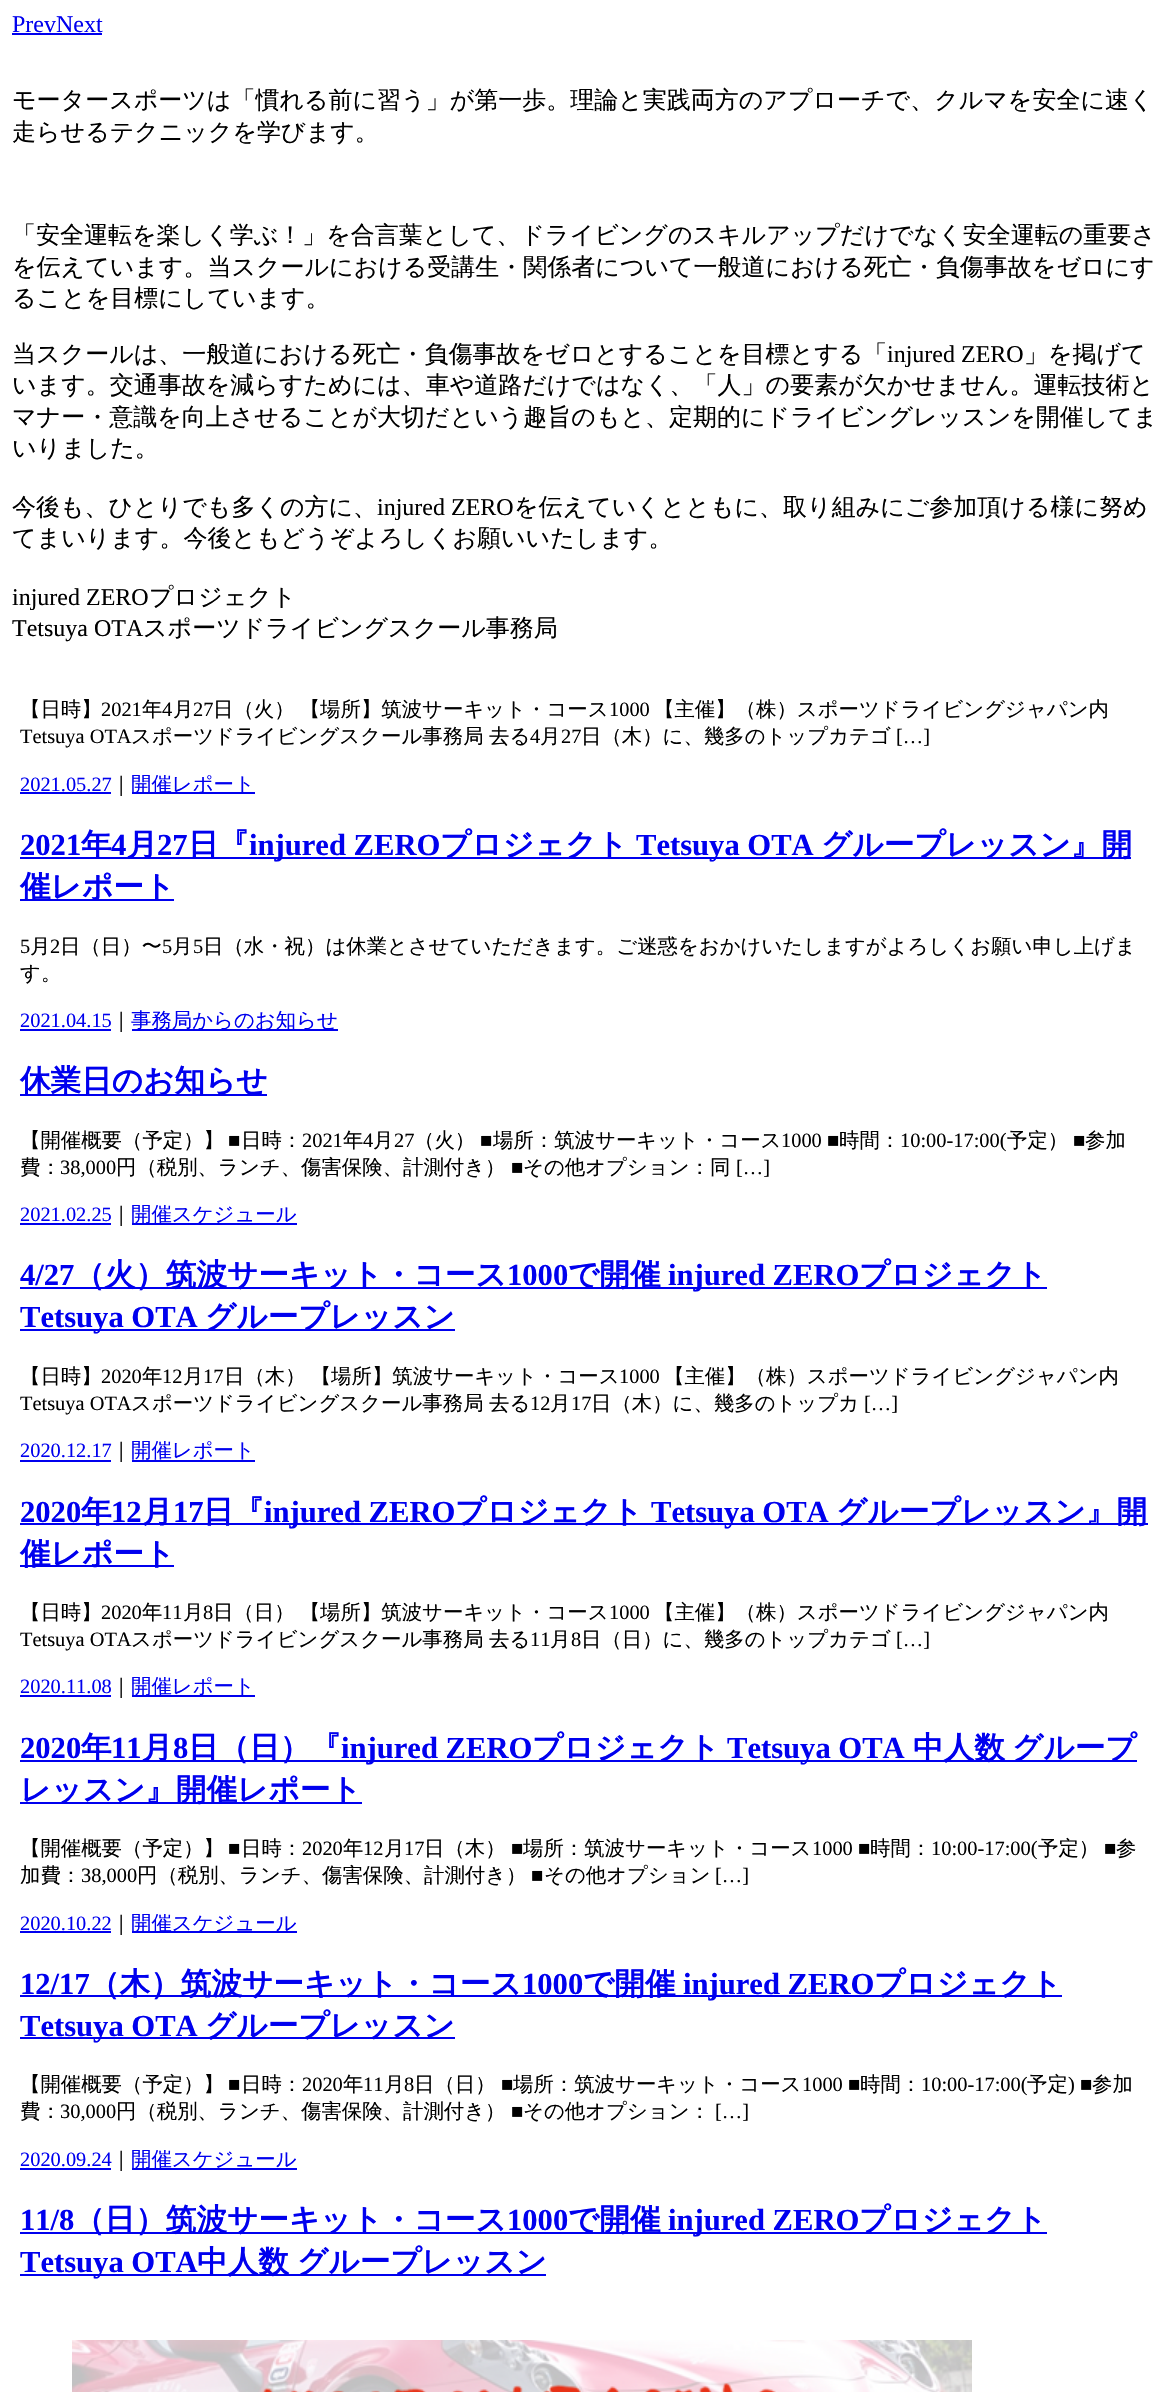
static SkFont makeFont(const char* family, int weight, float size, bool italic = false) {
  SkFontStyle style(weight, SkFontStyle::kNormal_Width,
    italic ? SkFontStyle::kItalic_Slant : SkFontStyle::kUpright_Slant);
  SkFont result(fontMgr->matchFamilyStyle(family, style), size);
  result.setSubpixel(true);
  return result;
}

static void text(SkCanvas* c, const char* s, float x, float y, const SkFont& font, SkColor color) {
  SkPaint ink(SkColor4f::FromColor(color));
  ink.setAntiAlias(true);
  c->drawString(s, x, y, font, ink);
}

static void spacedText(SkCanvas* c, const char* s, float x, float y, const SkFont& font, const SkPaint& ink, float letter, float word) {
  std::vector<SkGlyphID> glyphs(font.countText(s, strlen(s), SkTextEncoding::kUTF8));
  std::vector<float> xs(glyphs.size());
  font.textToGlyphs(s, strlen(s), SkTextEncoding::kUTF8, glyphs);
  font.getXPos(glyphs, xs, x);
  float extra = 0;
  for (size_t i = 0; i < glyphs.size(); i++) {
    xs[i] += extra;
    extra += letter + word * (glyphs[i] == font.unicharToGlyph(' '));
  }
  c->drawTextBlob(SkTextBlob::MakeFromPosHGlyphs(glyphs, xs, y, font), 0, 0, ink);
}

static void box(SkCanvas* c, float l, float t, float r, float b, SkColor color) {
  SkPaint ink(SkColor4f::FromColor(color));
  ink.setAntiAlias(true);
  c->drawRect(SkRect::MakeLTRB(l, t, r, b), ink);
}

static void picture(SkCanvas* c, const char* path, float l, float t, float r, float b) {
  auto image = SkImages::DeferredFromEncodedData(SkData::MakeFromFileName(path));
  c->drawImageRect(image, SkRect::MakeLTRB(l, t, r, b), SkSamplingOptions());
}

void draw(SkCanvas* c) {
  SkPaint paint;
  paint.setAntiAlias(true);
  c->clear(0xffffffff);
  SkFont face1 = makeFont("Liberation Serif", 400, 24);
  text(c, "PrevNext", 12, 32, face1, 0xff0000ee);
  box(c, 12, 33, 102, 35, 0xff0000ee);
  SkFont face2 = makeFont("WenQuanYi Zen Hei", 500, 24);
  text(c, "モータースポーツは「慣れる前に習う」が第一歩。理論と実践両方のアプローチで、クルマを安全に速く", 12, 108, face2, 0xff000000);
  text(c, "走らせるテクニックを学びます。", 12, 140, face2, 0xff000000);
  text(c, "「安全運転を楽しく学ぶ！」を合言葉として、ドライビングのスキルアップだけでなく安全運転の重要さ", 12, 243, face2, 0xff000000);
  text(c, "を伝えています。当スクールにおける受講生・関係者について一般道における死亡・負傷事故をゼロにす", 12, 275, face2, 0xff000000);
  text(c, "ることを目標にしています。", 12, 306, face2, 0xff000000);
  text(c, "当スクールは、一般道における死亡・負傷事故をゼロとすることを目標とする「", 12, 362, face2, 0xff000000);
  text(c, "injured ZERO", 887, 362, face1, 0xff000000);
  text(c, "」を掲げて", 1024, 362, face2, 0xff000000);
  text(c, "います。交通事故を減らすためには、車や道路だけではなく、「人」の要素が欠かせません。運転技術と", 12, 393, face2, 0xff000000);
  text(c, "マナー・意識を向上させることが大切だという趣旨のもと、定期的にドライビングレッスンを開催してま", 12, 425, face2, 0xff000000);
  text(c, "いりました。", 12, 456, face2, 0xff000000);
  text(c, "今後も、ひとりでも多くの方に、", 12, 515, face2, 0xff000000);
  text(c, "injured ZERO", 377, 515, face1, 0xff000000);
  text(c, "を伝えていくとともに、取り組みにご参加頂ける様に努め", 514, 515, face2, 0xff000000);
  text(c, "てまいります。今後ともどうぞよろしくお願いいたします。", 12, 546, face2, 0xff000000);
  text(c, "injured ZERO", 12, 605, face1, 0xff000000);
  text(c, "プロジェクト", 149, 605, face2, 0xff000000);
  text(c, "Tetsuya OTA", 12, 636, face1, 0xff000000);
  text(c, "スポーツドライビングスクール事務局", 143, 636, face2, 0xff000000);
  SkFont face3 = makeFont("WenQuanYi Zen Hei", 500, 20.4f);
  text(c, "【日時】", 20, 716, face3, 0xff000000);
  SkFont face4 = makeFont("Liberation Serif", 400, 20.4f);
  text(c, "2021", 101, 716, face4, 0xff000000);
  text(c, "年", 142, 716, face3, 0xff000000);
  text(c, "4", 162, 716, face4, 0xff000000);
  text(c, "月", 173, 716, face3, 0xff000000);
  text(c, "27", 193, 716, face4, 0xff000000);
  paint.setColor(0xff000000);
  spacedText(c, "日（火） 【場所】筑波サーキット・コース", 213, 716, face3, paint, 0, -1);
  text(c, "1000", 609, 716, face4, 0xff000000);
  text(c, "【主催】（株）スポーツドライビングジャパン内", 654, 716, face3, 0xff000000);
  text(c, "Tetsuya OTA", 20, 743, face4, 0xff000000);
  text(c, "スポーツドライビングスクール事務局", 131, 743, face3, 0xff000000);
  text(c, "去る", 489, 743, face3, 0xff000000);
  text(c, "4", 530, 743, face4, 0xff000000);
  text(c, "月", 540, 743, face3, 0xff000000);
  text(c, "27", 561, 743, face4, 0xff000000);
  text(c, "日（木）に、幾多のトップカテゴ", 581, 743, face3, 0xff000000);
  text(c, "[…]", 896, 743, face4, 0xff000000);
  text(c, "2021.05.27", 20, 791, face4, 0xff0000ee);
  box(c, 20, 792, 111, 794, 0xff0000ee);
  text(c, "｜", 111, 791, face3, 0xff000000);
  box(c, 132, 792, 255, 794, 0xff0000ee);
  text(c, "開催レポート", 131, 791, face3, 0xff0000ee);
  SkFont face5 = makeFont("Liberation Serif", 700, 30.6f);
  text(c, "2021", 20, 855, face5, 0xff0000ee);
  box(c, 20, 857, 1131, 859, 0xff0000ee);
  SkFont face6 = makeFont("WenQuanYi Zen Hei", 700, 30.6f);
  text(c, "年", 81, 855, face6, 0xff0000ee);
  text(c, "4", 111, 855, face5, 0xff0000ee);
  text(c, "月", 127, 855, face6, 0xff0000ee);
  text(c, "27", 157, 855, face5, 0xff0000ee);
  text(c, "日『", 188, 855, face6, 0xff0000ee);
  text(c, "injured ZERO", 249, 855, face5, 0xff0000ee);
  text(c, "プロジェクト", 440, 855, face6, 0xff0000ee);
  text(c, "Tetsuya OTA", 636, 855, face5, 0xff0000ee);
  text(c, "グループレッスン』開", 821, 855, face6, 0xff0000ee);
  box(c, 20, 899, 174, 901, 0xff0000ee);
  text(c, "催レポート", 20, 897, face6, 0xff0000ee);
  text(c, "5", 20, 953, face4, 0xff000000);
  text(c, "月", 30, 953, face3, 0xff000000);
  text(c, "2", 50, 953, face4, 0xff000000);
  text(c, "日（日）〜", 60, 953, face3, 0xff000000);
  text(c, "5", 162, 953, face4, 0xff000000);
  text(c, "月", 172, 953, face3, 0xff000000);
  text(c, "5", 193, 953, face4, 0xff000000);
  text(c, "日（水・祝）は休業とさせていただきます。ご迷惑をおかけいたしますがよろしくお願い申し上げま", 203, 953, face3, 0xff000000);
  text(c, "す。", 20, 980, face3, 0xff000000);
  text(c, "2021.04.15", 20, 1027, face4, 0xff0000ee);
  box(c, 20, 1029, 111, 1031, 0xff0000ee);
  text(c, "｜", 111, 1027, face3, 0xff000000);
  box(c, 132, 1029, 338, 1031, 0xff0000ee);
  text(c, "事務局からのお知らせ", 131, 1027, face3, 0xff0000ee);
  box(c, 20, 1094, 267, 1096, 0xff0000ee);
  text(c, "休業日のお知らせ", 20, 1091, face6, 0xff0000ee);
  text(c, "【開催概要（予定）】", 20, 1147, face3, 0xff000000);
  text(c, "■", 228, 1147, face4, 0xff000000);
  text(c, "日時：", 241, 1147, face3, 0xff000000);
  text(c, "2021", 302, 1147, face4, 0xff000000);
  text(c, "年", 343, 1147, face3, 0xff000000);
  text(c, "4", 363, 1147, face4, 0xff000000);
  text(c, "月", 373, 1147, face3, 0xff000000);
  text(c, "27", 394, 1147, face4, 0xff000000);
  text(c, "（火）", 414, 1147, face3, 0xff000000);
  text(c, "■", 480, 1147, face4, 0xff000000);
  text(c, "場所：筑波サーキット・コース", 493, 1147, face3, 0xff000000);
  text(c, "1000 ■", 781, 1147, face4, 0xff000000);
  text(c, "時間：", 839, 1147, face3, 0xff000000);
  text(c, "10:00-17:00(", 900, 1147, face4, 0xff000000);
  text(c, "予定）", 1007, 1147, face3, 0xff000000);
  text(c, "■", 1073, 1147, face4, 0xff000000);
  text(c, "参加", 1085, 1147, face3, 0xff000000);
  text(c, "費：", 20, 1174, face3, 0xff000000);
  text(c, "38,000", 60, 1174, face4, 0xff000000);
  text(c, "円（税別、ランチ、傷害保険、計測付き）", 116, 1174, face3, 0xff000000);
  text(c, "■", 511, 1174, face4, 0xff000000);
  text(c, "その他オプション：同", 523, 1174, face3, 0xff000000);
  text(c, "[…]", 736, 1174, face4, 0xff000000);
  text(c, "2021.02.25", 20, 1221, face4, 0xff0000ee);
  box(c, 20, 1223, 111, 1225, 0xff0000ee);
  text(c, "｜", 111, 1221, face3, 0xff000000);
  box(c, 132, 1223, 297, 1225, 0xff0000ee);
  text(c, "開催スケジュール", 131, 1221, face3, 0xff0000ee);
  text(c, "4/27", 20, 1285, face5, 0xff0000ee);
  box(c, 20, 1287, 1047, 1289, 0xff0000ee);
  text(c, "（火）筑波サーキット・コース", 74, 1285, face6, 0xff0000ee);
  text(c, "1000", 507, 1285, face5, 0xff0000ee);
  text(c, "で開催", 568, 1285, face6, 0xff0000ee);
  text(c, "injured ZERO", 668, 1285, face5, 0xff0000ee);
  text(c, "プロジェクト", 859, 1285, face6, 0xff0000ee);
  box(c, 20, 1329, 455, 1331, 0xff0000ee);
  text(c, "Tetsuya OTA", 20, 1327, face5, 0xff0000ee);
  text(c, "グループレッスン", 205, 1327, face6, 0xff0000ee);
  text(c, "【日時】", 20, 1383, face3, 0xff000000);
  text(c, "2020", 101, 1383, face4, 0xff000000);
  text(c, "年", 142, 1383, face3, 0xff000000);
  text(c, "12", 162, 1383, face4, 0xff000000);
  text(c, "月", 183, 1383, face3, 0xff000000);
  text(c, "17", 203, 1383, face4, 0xff000000);
  spacedText(c, "日（木） 【場所】筑波サーキット・コース", 224, 1383, face3, paint, 0, -1);
  text(c, "1000", 619, 1383, face4, 0xff000000);
  text(c, "【主催】（株）スポーツドライビングジャパン内", 664, 1383, face3, 0xff000000);
  text(c, "Tetsuya OTA", 20, 1410, face4, 0xff000000);
  text(c, "スポーツドライビングスクール事務局", 131, 1410, face3, 0xff000000);
  text(c, "去る", 489, 1410, face3, 0xff000000);
  text(c, "12", 530, 1410, face4, 0xff000000);
  text(c, "月", 550, 1410, face3, 0xff000000);
  text(c, "17", 571, 1410, face4, 0xff000000);
  text(c, "日（木）に、幾多のトップカ", 591, 1410, face3, 0xff000000);
  text(c, "[…]", 864, 1410, face4, 0xff000000);
  text(c, "2020.12.17", 20, 1457, face4, 0xff0000ee);
  box(c, 20, 1460, 111, 1462, 0xff0000ee);
  text(c, "｜", 111, 1457, face3, 0xff000000);
  text(c, "開催レポート", 131, 1457, face3, 0xff0000ee);
  box(c, 132, 1460, 255, 1462, 0xff0000ee);
  text(c, "2020", 20, 1522, face5, 0xff0000ee);
  box(c, 20, 1523, 1148, 1525, 0xff0000ee);
  text(c, "年", 81, 1522, face6, 0xff0000ee);
  text(c, "12", 111, 1522, face5, 0xff0000ee);
  text(c, "月", 142, 1522, face6, 0xff0000ee);
  text(c, "17", 173, 1522, face5, 0xff0000ee);
  text(c, "日『", 203, 1522, face6, 0xff0000ee);
  text(c, "injured ZERO", 264, 1522, face5, 0xff0000ee);
  text(c, "プロジェクト", 455, 1522, face6, 0xff0000ee);
  text(c, "Tetsuya OTA", 651, 1522, face5, 0xff0000ee);
  text(c, "グループレッスン』開", 836, 1522, face6, 0xff0000ee);
  box(c, 20, 1565, 174, 1567, 0xff0000ee);
  text(c, "催レポート", 20, 1564, face6, 0xff0000ee);
  text(c, "【日時】", 20, 1619, face3, 0xff000000);
  text(c, "2020", 101, 1619, face4, 0xff000000);
  text(c, "年", 142, 1619, face3, 0xff000000);
  text(c, "11", 162, 1619, face4, 0xff000000);
  text(c, "月", 183, 1619, face3, 0xff000000);
  text(c, "8", 203, 1619, face4, 0xff000000);
  spacedText(c, "日（日） 【場所】筑波サーキット・コース", 213, 1619, face3, paint, 0, -1);
  text(c, "1000", 609, 1619, face4, 0xff000000);
  text(c, "【主催】（株）スポーツドライビングジャパン内", 654, 1619, face3, 0xff000000);
  text(c, "Tetsuya OTA", 20, 1646, face4, 0xff000000);
  text(c, "スポーツドライビングスクール事務局", 131, 1646, face3, 0xff000000);
  text(c, "去る", 489, 1646, face3, 0xff000000);
  text(c, "11", 530, 1646, face4, 0xff000000);
  text(c, "月", 550, 1646, face3, 0xff000000);
  text(c, "8", 571, 1646, face4, 0xff000000);
  text(c, "日（日）に、幾多のトップカテゴ", 581, 1646, face3, 0xff000000);
  text(c, "[…]", 896, 1646, face4, 0xff000000);
  text(c, "2020.11.08", 20, 1693, face4, 0xff0000ee);
  box(c, 20, 1695, 111, 1697, 0xff0000ee);
  text(c, "｜", 111, 1693, face3, 0xff000000);
  box(c, 132, 1695, 255, 1697, 0xff0000ee);
  text(c, "開催レポート", 131, 1693, face3, 0xff0000ee);
  text(c, "2020", 20, 1758, face5, 0xff0000ee);
  box(c, 20, 1760, 1137, 1762, 0xff0000ee);
  text(c, "年", 81, 1758, face6, 0xff0000ee);
  text(c, "11", 111, 1758, face5, 0xff0000ee);
  text(c, "月", 142, 1758, face6, 0xff0000ee);
  text(c, "8", 173, 1758, face5, 0xff0000ee);
  text(c, "日（日）『", 188, 1758, face6, 0xff0000ee);
  text(c, "injured ZERO", 341, 1758, face5, 0xff0000ee);
  text(c, "プロジェクト", 532, 1758, face6, 0xff0000ee);
  text(c, "Tetsuya OTA", 727, 1758, face5, 0xff0000ee);
  text(c, "中人数", 913, 1758, face6, 0xff0000ee);
  text(c, "グループ", 1012, 1758, face6, 0xff0000ee);
  box(c, 20, 1802, 362, 1804, 0xff0000ee);
  text(c, "レッスン』開催レポート", 20, 1800, face6, 0xff0000ee);
  text(c, "【開催概要（予定）】", 20, 1855, face3, 0xff000000);
  text(c, "■", 228, 1855, face4, 0xff000000);
  text(c, "日時：", 241, 1855, face3, 0xff000000);
  text(c, "2020", 302, 1855, face4, 0xff000000);
  text(c, "年", 343, 1855, face3, 0xff000000);
  text(c, "12", 363, 1855, face4, 0xff000000);
  text(c, "月", 384, 1855, face3, 0xff000000);
  text(c, "17", 404, 1855, face4, 0xff000000);
  text(c, "日（木）", 424, 1855, face3, 0xff000000);
  text(c, "■", 511, 1855, face4, 0xff000000);
  text(c, "場所：筑波サーキット・コース", 523, 1855, face3, 0xff000000);
  text(c, "1000 ■", 812, 1855, face4, 0xff000000);
  text(c, "時間：", 870, 1855, face3, 0xff000000);
  text(c, "10:00-17:00(", 931, 1855, face4, 0xff000000);
  text(c, "予定）", 1038, 1855, face3, 0xff000000);
  text(c, "■", 1104, 1855, face4, 0xff000000);
  text(c, "参", 1116, 1855, face3, 0xff000000);
  text(c, "加費：", 20, 1882, face3, 0xff000000);
  text(c, "38,000", 81, 1882, face4, 0xff000000);
  text(c, "円（税別、ランチ、傷害保険、計測付き）", 137, 1882, face3, 0xff000000);
  text(c, "■", 531, 1882, face4, 0xff000000);
  text(c, "その他オプション", 544, 1882, face3, 0xff000000);
  text(c, "[…]", 715, 1882, face4, 0xff000000);
  text(c, "2020.10.22", 20, 1930, face4, 0xff0000ee);
  box(c, 20, 1931, 111, 1933, 0xff0000ee);
  text(c, "｜", 111, 1930, face3, 0xff000000);
  box(c, 132, 1931, 297, 1933, 0xff0000ee);
  text(c, "開催スケジュール", 131, 1930, face3, 0xff0000ee);
  text(c, "12/17", 20, 1994, face5, 0xff0000ee);
  box(c, 20, 1995, 1062, 1997, 0xff0000ee);
  text(c, "（木）筑波サーキット・コース", 89, 1994, face6, 0xff0000ee);
  text(c, "1000", 522, 1994, face5, 0xff0000ee);
  text(c, "で開催", 583, 1994, face6, 0xff0000ee);
  text(c, "injured ZERO", 683, 1994, face5, 0xff0000ee);
  text(c, "プロジェクト", 874, 1994, face6, 0xff0000ee);
  box(c, 20, 2037, 455, 2039, 0xff0000ee);
  text(c, "Tetsuya OTA", 20, 2036, face5, 0xff0000ee);
  text(c, "グループレッスン", 205, 2036, face6, 0xff0000ee);
  text(c, "【開催概要（予定）】", 20, 2091, face3, 0xff000000);
  text(c, "■", 228, 2091, face4, 0xff000000);
  text(c, "日時：", 241, 2091, face3, 0xff000000);
  text(c, "2020", 302, 2091, face4, 0xff000000);
  text(c, "年", 343, 2091, face3, 0xff000000);
  text(c, "11", 363, 2091, face4, 0xff000000);
  text(c, "月", 384, 2091, face3, 0xff000000);
  text(c, "8", 404, 2091, face4, 0xff000000);
  text(c, "日（日）", 414, 2091, face3, 0xff000000);
  text(c, "■", 501, 2091, face4, 0xff000000);
  text(c, "場所：筑波サーキット・コース", 513, 2091, face3, 0xff000000);
  text(c, "1000 ■", 802, 2091, face4, 0xff000000);
  text(c, "時間：", 860, 2091, face3, 0xff000000);
  text(c, "10:00-17:00(", 921, 2091, face4, 0xff000000);
  text(c, "予定", 1027, 2091, face3, 0xff000000);
  text(c, ") ■", 1068, 2091, face4, 0xff000000);
  text(c, "参加", 1092, 2091, face3, 0xff000000);
  text(c, "費：", 20, 2118, face3, 0xff000000);
  text(c, "30,000", 60, 2118, face4, 0xff000000);
  text(c, "円（税別、ランチ、傷害保険、計測付き）", 116, 2118, face3, 0xff000000);
  text(c, "■", 511, 2118, face4, 0xff000000);
  text(c, "その他オプション：", 523, 2118, face3, 0xff000000);
  text(c, "[…]", 715, 2118, face4, 0xff000000);
  text(c, "2020.09.24", 20, 2166, face4, 0xff0000ee);
  box(c, 20, 2168, 111, 2170, 0xff0000ee);
  text(c, "｜", 111, 2166, face3, 0xff000000);
  box(c, 132, 2168, 297, 2170, 0xff0000ee);
  text(c, "開催スケジュール", 131, 2166, face3, 0xff0000ee);
  text(c, "11/8", 20, 2230, face5, 0xff0000ee);
  box(c, 20, 2232, 1047, 2234, 0xff0000ee);
  text(c, "（日）筑波サーキット・コース", 74, 2230, face6, 0xff0000ee);
  text(c, "1000", 507, 2230, face5, 0xff0000ee);
  text(c, "で開催", 568, 2230, face6, 0xff0000ee);
  text(c, "injured ZERO", 668, 2230, face5, 0xff0000ee);
  text(c, "プロジェクト", 859, 2230, face6, 0xff0000ee);
  box(c, 20, 2274, 546, 2276, 0xff0000ee);
  text(c, "Tetsuya OTA", 20, 2272, face5, 0xff0000ee);
  text(c, "中人数", 197, 2272, face6, 0xff0000ee);
  text(c, "グループレッスン", 297, 2272, face6, 0xff0000ee);
  picture(c, "img_01.png", 72, 2340, 972, 2392);
}
